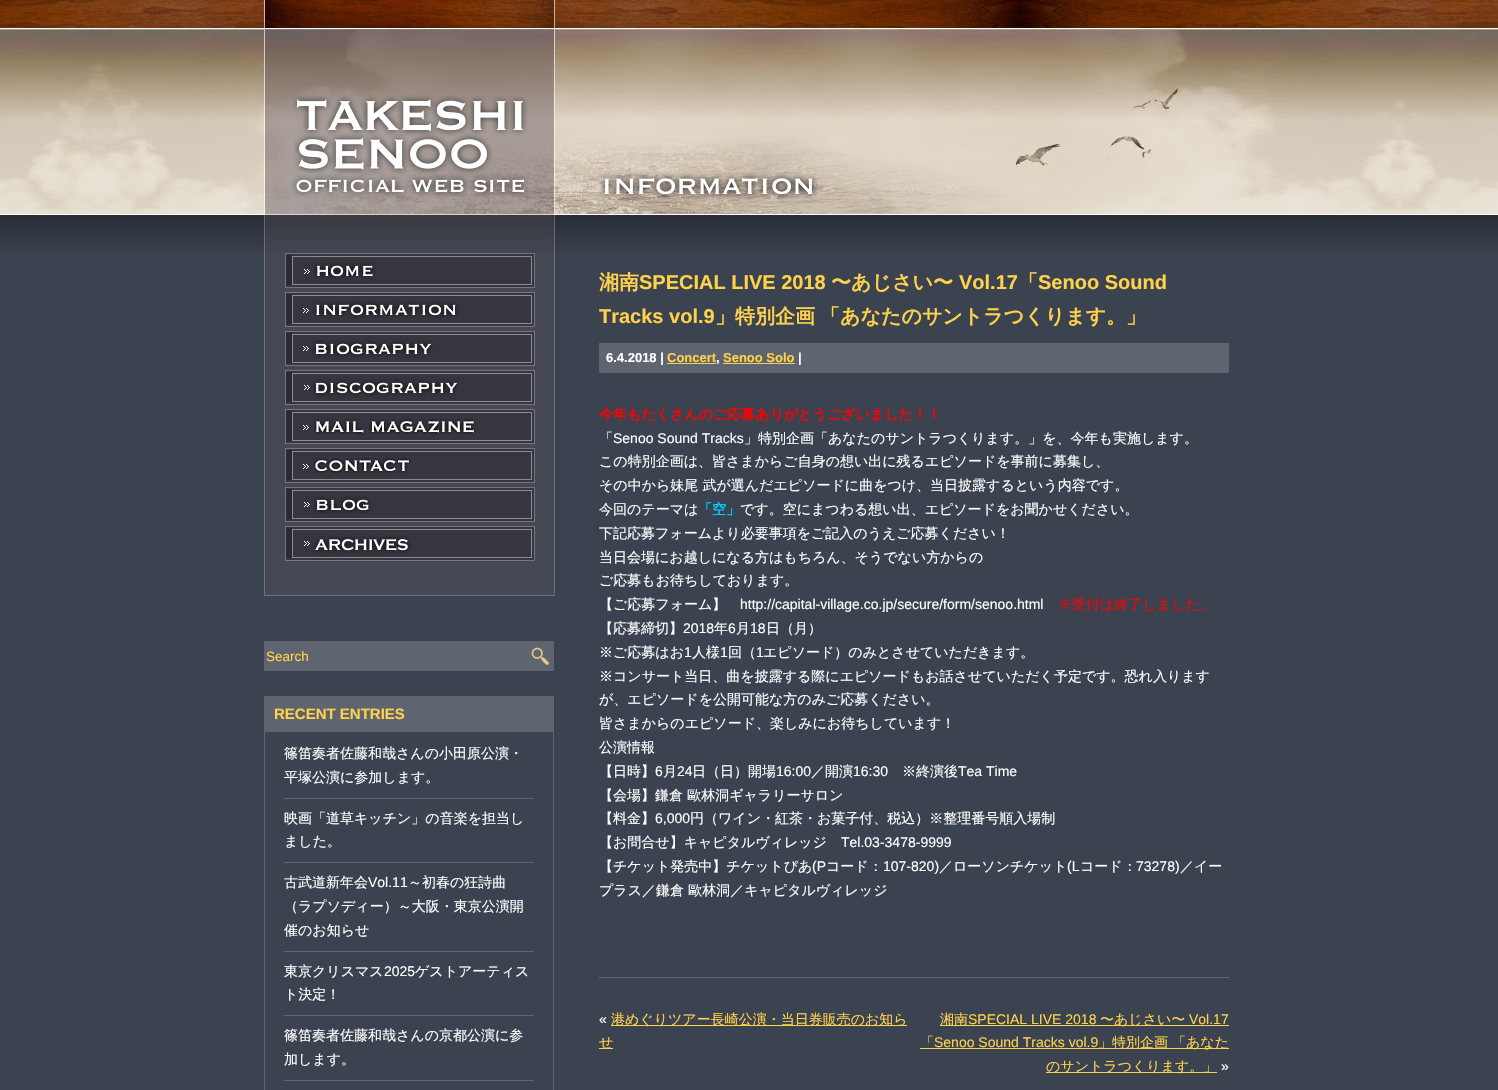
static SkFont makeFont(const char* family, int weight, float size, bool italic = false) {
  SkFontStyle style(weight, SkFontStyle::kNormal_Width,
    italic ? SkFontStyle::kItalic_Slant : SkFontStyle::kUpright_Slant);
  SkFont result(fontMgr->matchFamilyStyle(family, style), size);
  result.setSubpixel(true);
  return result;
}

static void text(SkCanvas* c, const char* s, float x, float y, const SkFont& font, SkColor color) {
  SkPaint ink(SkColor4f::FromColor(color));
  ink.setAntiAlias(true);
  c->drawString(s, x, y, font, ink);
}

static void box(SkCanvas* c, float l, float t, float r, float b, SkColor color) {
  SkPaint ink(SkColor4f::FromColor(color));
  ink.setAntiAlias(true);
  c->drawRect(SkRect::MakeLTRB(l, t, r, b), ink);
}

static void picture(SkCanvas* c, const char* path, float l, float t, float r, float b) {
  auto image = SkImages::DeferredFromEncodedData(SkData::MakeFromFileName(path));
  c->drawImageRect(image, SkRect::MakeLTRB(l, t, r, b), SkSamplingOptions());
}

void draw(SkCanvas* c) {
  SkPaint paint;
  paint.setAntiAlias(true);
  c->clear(0xff3b4350);
  picture(c, "img_01.png", 0, 0, 1498, 600);
  picture(c, "img_02.png", 291, 95, 528, 198);
  picture(c, "img_03.png", 285, 253, 535, 288);
  picture(c, "img_04.png", 285, 292, 535, 327);
  picture(c, "img_05.png", 285, 331, 535, 366);
  picture(c, "img_06.png", 285, 370, 535, 405);
  picture(c, "img_07.png", 285, 409, 535, 444);
  picture(c, "img_08.png", 285, 448, 535, 483);
  picture(c, "img_09.png", 285, 487, 535, 522);
  picture(c, "img_10.png", 285, 526, 535, 561);
  box(c, 264, 641, 554, 671, 0xff5e6570);
  SkFont face1 = makeFont("Liberation Sans", 400, 13.5f);
  text(c, "Search", 266, 661, face1, 0xffffd24c);
  picture(c, "img_11.png", 531, 647, 549, 665);
  box(c, 264, 696, 554, 731, 0xff5e6570);
  SkFont face2 = makeFont("Liberation Sans", 700, 15);
  text(c, "RECENT ENTRIES", 274, 719, face2, 0xffffd24c);
  paint.setStyle(SkPaint::kStroke_Style);
  paint.setStrokeWidth(1);
  paint.setColor(0xff5e6570);
  c->drawRect(SkRect::MakeLTRB(264.5f, 731.5f, 553.5f, 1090.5f), paint);
  box(c, 284, 798, 534, 799, 0xff5e6570);
  SkFont face3 = makeFont("WenQuanYi Zen Hei", 500, 14);
  text(c, "篠笛奏者佐藤和哉さんの小田原公演・", 284, 758, face3, 0xffffffff);
  text(c, "平塚公演に参加します。", 284, 782, face3, 0xffffffff);
  box(c, 284, 862, 534, 863, 0xff5e6570);
  text(c, "映画「道草キッチン」の音楽を担当し", 284, 823, face3, 0xffffffff);
  text(c, "ました。", 284, 846, face3, 0xffffffff);
  box(c, 284, 951, 534, 952, 0xff5e6570);
  text(c, "古武道新年会", 284, 887, face3, 0xffffffff);
  SkFont face4 = makeFont("Liberation Sans", 400, 14);
  text(c, "Vol.11", 368, 887, face4, 0xffffffff);
  text(c, "～初春の狂詩曲", 408, 887, face3, 0xffffffff);
  text(c, "（ラプソディー）～大阪・東京公演開", 284, 911, face3, 0xffffffff);
  text(c, "催のお知らせ", 284, 935, face3, 0xffffffff);
  box(c, 284, 1015, 534, 1016, 0xff5e6570);
  text(c, "東京クリスマス", 284, 976, face3, 0xffffffff);
  text(c, "2025", 384, 976, face4, 0xffffffff);
  text(c, "ゲストアーティス", 415, 976, face3, 0xffffffff);
  text(c, "ト決定！", 284, 999, face3, 0xffffffff);
  box(c, 284, 1080, 534, 1081, 0xff5e6570);
  text(c, "篠笛奏者佐藤和哉さんの京都公演に参", 284, 1040, face3, 0xffffffff);
  text(c, "加します。", 284, 1064, face3, 0xffffffff);
  picture(c, "img_12.png", 599, 172, 818, 200);
  box(c, 599, 977, 1229, 978, 0xff606671);
  SkFont face5 = makeFont("WenQuanYi Zen Hei", 700, 20);
  text(c, "湘南", 599, 289, face5, 0xffffd24c);
  SkFont face6 = makeFont("Liberation Sans", 700, 20);
  text(c, "SPECIAL LIVE 2018", 639, 289, face6, 0xffffd24c);
  text(c, "〜あじさい〜", 831, 289, face5, 0xffffd24c);
  text(c, "Vol.17", 959, 289, face6, 0xffffd24c);
  text(c, "「", 1018, 289, face5, 0xffffd24c);
  text(c, "Senoo Sound", 1038, 289, face6, 0xffffd24c);
  text(c, "Tracks vol.9", 599, 323, face6, 0xffffd24c);
  text(c, "」特別企画", 715, 323, face5, 0xffffd24c);
  text(c, "「あなたのサントラつくります。」", 820, 323, face5, 0xffffd24c);
  box(c, 599, 343, 1229, 373, 0xff5e6570);
  SkFont face7 = makeFont("Liberation Sans", 700, 13);
  text(c, "6.4.2018 |", 606, 362, face7, 0xffffffff);
  text(c, "Concert", 667, 362, face7, 0xffffd24c);
  box(c, 667, 363, 716, 364, 0xffffd24c);
  text(c, ",", 716, 362, face7, 0xffffffff);
  text(c, "Senoo Solo", 723, 362, face7, 0xffffd24c);
  box(c, 723, 363, 795, 364, 0xffffd24c);
  text(c, "|", 798, 362, face7, 0xffffffff);
  SkFont face8 = makeFont("WenQuanYi Zen Hei", 700, 14);
  text(c, "今年もたくさんのご応募ありがとうございました！！", 599, 419, face8, 0xffff0000);
  text(c, "「", 599, 443, face3, 0xffffffff);
  text(c, "Senoo Sound Tracks", 613, 443, face4, 0xffffffff);
  text(c, "」特別企画「あなたのサントラつくります。」を、今年も実施します。", 744, 443, face3, 0xffffffff);
  text(c, "この特別企画は、皆さまからご自身の想い出に残るエピソードを事前に募集し、", 599, 466, face3, 0xffffffff);
  text(c, "その中から妹尾 武が選んだエピソードに曲をつけ、当日披露するという内容です。", 599, 490, face3, 0xffffffff);
  text(c, "今回のテーマは", 599, 514, face3, 0xffffffff);
  text(c, "「空」", 698, 514, face8, 0xff00ccff);
  text(c, "です。空にまつわる想い出、エピソードをお聞かせください。", 740, 514, face3, 0xffffffff);
  text(c, "下記応募フォームより必要事項をご記入のうえご応募ください！", 599, 538, face3, 0xffffffff);
  text(c, "当日会場にお越しになる方はもちろん、そうでない方からの", 599, 562, face3, 0xffffffff);
  text(c, "ご応募もお待ちしております。", 599, 585, face3, 0xffffffff);
  text(c, "【ご応募フォーム】", 599, 609, face3, 0xffffffff);
  text(c, "http://capital-village.co.jp/secure/form/senoo.html", 740, 609, face4, 0xffffffff);
  text(c, "※受付は終了しました。", 1058, 609, face3, 0xffff0000);
  text(c, "【応募締切】", 599, 633, face3, 0xffffffff);
  text(c, "2018", 683, 633, face4, 0xffffffff);
  text(c, "年", 714, 633, face3, 0xffffffff);
  text(c, "6", 728, 633, face4, 0xffffffff);
  text(c, "月", 736, 633, face3, 0xffffffff);
  text(c, "18", 750, 633, face4, 0xffffffff);
  text(c, "日（月）", 766, 633, face3, 0xffffffff);
  text(c, "※ご応募はお", 599, 657, face3, 0xffffffff);
  text(c, "1", 684, 657, face4, 0xffffffff);
  text(c, "人様", 692, 657, face3, 0xffffffff);
  text(c, "1", 720, 657, face4, 0xffffffff);
  text(c, "回（", 728, 657, face3, 0xffffffff);
  text(c, "1", 756, 657, face4, 0xffffffff);
  text(c, "エピソード）のみとさせていただきます。", 763, 657, face3, 0xffffffff);
  text(c, "※コンサート当日、曲を披露する際にエピソードもお話させていただく予定です。恐れ入ります", 599, 681, face3, 0xffffffff);
  text(c, "が、エピソードを公開可能な方のみご応募ください。", 599, 704, face3, 0xffffffff);
  text(c, "皆さまからのエピソード、楽しみにお待ちしています！", 599, 728, face3, 0xffffffff);
  text(c, "公演情報", 599, 752, face3, 0xffffffff);
  text(c, "【日時】", 599, 776, face3, 0xffffffff);
  text(c, "6", 655, 776, face4, 0xffffffff);
  text(c, "月", 663, 776, face3, 0xffffffff);
  text(c, "24", 677, 776, face4, 0xffffffff);
  text(c, "日（日）開場", 692, 776, face3, 0xffffffff);
  text(c, "16:00", 776, 776, face4, 0xffffffff);
  text(c, "／開演", 811, 776, face3, 0xffffffff);
  text(c, "16:30", 853, 776, face4, 0xffffffff);
  text(c, "※終演後", 902, 776, face3, 0xffffffff);
  text(c, "Tea Time", 958, 776, face4, 0xffffffff);
  text(c, "【会場】鎌倉 歐林洞ギャラリーサロン", 599, 800, face3, 0xffffffff);
  text(c, "【料金】", 599, 823, face3, 0xffffffff);
  text(c, "6,000", 655, 823, face4, 0xffffffff);
  text(c, "円（ワイン・紅茶・お菓子付、税込）※整理番号順入場制", 690, 823, face3, 0xffffffff);
  text(c, "【お問合せ】キャピタルヴィレッジ", 599, 847, face3, 0xffffffff);
  text(c, "Tel.03-3478-9999", 841, 847, face4, 0xffffffff);
  text(c, "【チケット発売中】チケットぴあ", 599, 871, face3, 0xffffffff);
  text(c, "(P", 812, 871, face4, 0xffffffff);
  text(c, "コード：", 826, 871, face3, 0xffffffff);
  text(c, "107-820)", 883, 871, face4, 0xffffffff);
  text(c, "／ローソンチケット", 939, 871, face3, 0xffffffff);
  text(c, "(L", 1067, 871, face4, 0xffffffff);
  text(c, "コード：", 1080, 871, face3, 0xffffffff);
  text(c, "73278)", 1136, 871, face4, 0xffffffff);
  text(c, "／イー", 1180, 871, face3, 0xffffffff);
  text(c, "プラス／鎌倉 歐林洞／キャピタルヴィレッジ", 599, 895, face3, 0xffffffff);
  text(c, "«", 599, 1024, face4, 0xffffffff);
  box(c, 611, 1025, 907, 1026, 0xffffd24c);
  text(c, "港めぐりツアー長崎公演・当日券販売のお知ら", 611, 1024, face3, 0xffffd24c);
  box(c, 599, 1048, 613, 1049, 0xffffd24c);
  text(c, "せ", 599, 1047, face3, 0xffffd24c);
  box(c, 940, 1025, 1229, 1026, 0xffffd24c);
  text(c, "湘南", 940, 1024, face3, 0xffffd24c);
  text(c, "SPECIAL LIVE 2018", 968, 1024, face4, 0xffffd24c);
  text(c, "〜あじさい〜", 1100, 1024, face3, 0xffffd24c);
  text(c, "Vol.17", 1189, 1024, face4, 0xffffd24c);
  text(c, "「", 920, 1047, face3, 0xffffd24c);
  text(c, "Senoo Sound Tracks vol.9", 934, 1047, face4, 0xffffd24c);
  box(c, 920, 1048, 1229, 1049, 0xffffd24c);
  text(c, "」特別企画", 1098, 1047, face3, 0xffffd24c);
  text(c, "「あなた", 1172, 1047, face3, 0xffffd24c);
  box(c, 1046, 1072, 1217, 1073, 0xffffd24c);
  text(c, "のサントラつくります。」", 1046, 1071, face3, 0xffffd24c);
  text(c, "»", 1221, 1071, face4, 0xffffffff);
}
